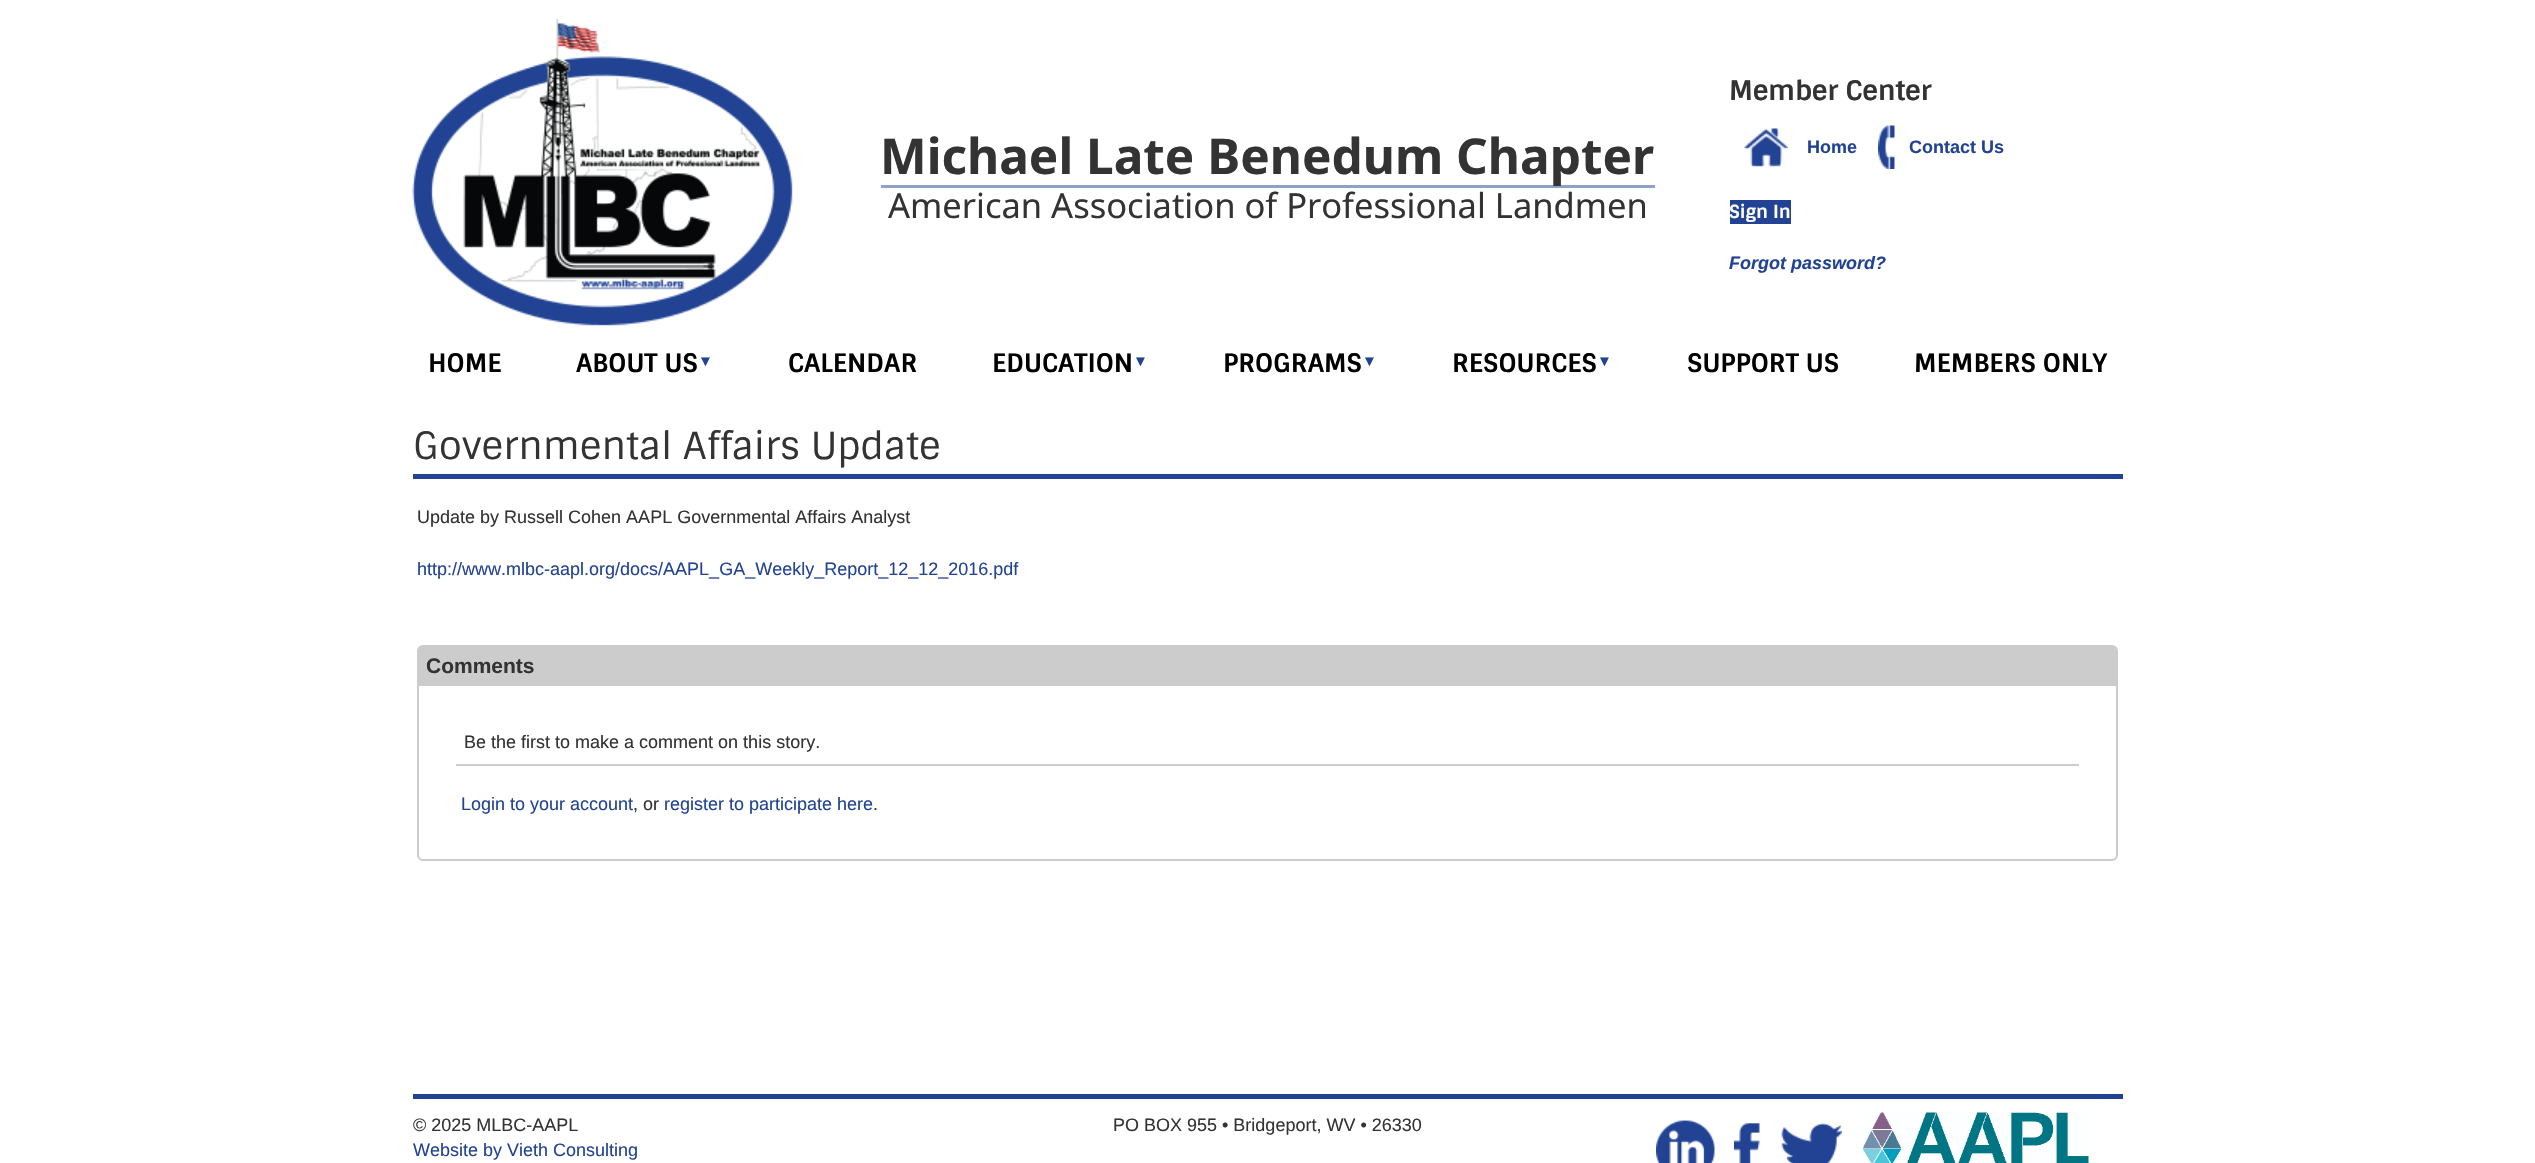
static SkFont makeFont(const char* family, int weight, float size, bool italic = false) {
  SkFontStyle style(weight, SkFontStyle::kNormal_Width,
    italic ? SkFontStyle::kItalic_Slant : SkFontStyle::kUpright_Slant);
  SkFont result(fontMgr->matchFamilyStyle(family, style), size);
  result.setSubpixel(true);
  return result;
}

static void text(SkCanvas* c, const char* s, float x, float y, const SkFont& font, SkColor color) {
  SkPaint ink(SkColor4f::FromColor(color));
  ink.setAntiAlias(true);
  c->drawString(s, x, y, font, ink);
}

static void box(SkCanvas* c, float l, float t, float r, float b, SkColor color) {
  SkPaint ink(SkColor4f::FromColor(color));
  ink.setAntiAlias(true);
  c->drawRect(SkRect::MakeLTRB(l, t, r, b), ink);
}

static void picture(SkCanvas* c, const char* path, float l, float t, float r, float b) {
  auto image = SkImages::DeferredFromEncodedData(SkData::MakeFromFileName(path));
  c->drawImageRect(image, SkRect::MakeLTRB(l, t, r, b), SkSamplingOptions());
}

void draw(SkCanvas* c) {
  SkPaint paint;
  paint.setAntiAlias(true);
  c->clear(0xffffffff);
  picture(c, "img_01.png", 412, 18, 793, 326);
  box(c, 881, 185, 1655, 188, 0xff90a1c9);
  SkFont face1 = makeFont("Noto Sans", 700, 49.5f);
  text(c, "Michael Late Benedum Chapter", 880, 174, face1, 0xff333333);
  SkFont face2 = makeFont("Noto Sans", 400, 34.5f);
  text(c, "American Association of Professional Landmen", 888, 218, face2, 0xff333333);
  SkFont face3 = makeFont("Sintony", 700, 27);
  text(c, "Member Center", 1729, 100, face3, 0xff333333);
  picture(c, "img_02.png", 1744, 128, 1788, 167);
  SkFont face4 = makeFont("Liberation Sans", 700, 18);
  text(c, "Home", 1807, 153, face4, 0xff224394);
  picture(c, "img_03.png", 1878, 125, 1895, 169);
  text(c, "Contact Us", 1909, 153, face4, 0xff224394);
  box(c, 1730, 200, 1791, 224, 0xff224394);
  SkFont face5 = makeFont("Sintony", 700, 18);
  text(c, "Sign In", 1729, 218, face5, 0xffffffff);
  SkFont face6 = makeFont("Liberation Sans", 700, 18, true);
  text(c, "Forgot password?", 1729, 269, face6, 0xff224394);
  SkFont face7 = makeFont("Sintony", 700, 25.5f);
  text(c, "HOME", 428, 372, face7, 0xff000000);
  text(c, "ABOUT US", 576, 372, face7, 0xff000000);
  SkFont face8 = makeFont("Liberation Sans", 700, 15);
  text(c, "▼", 698, 366, face8, 0xff224394);
  text(c, "CALENDAR", 788, 372, face7, 0xff000000);
  text(c, "EDUCATION", 992, 372, face7, 0xff000000);
  text(c, "▼", 1133, 366, face8, 0xff224394);
  text(c, "PROGRAMS", 1223, 372, face7, 0xff000000);
  text(c, "▼", 1362, 366, face8, 0xff224394);
  text(c, "RESOURCES", 1452, 372, face7, 0xff000000);
  text(c, "▼", 1597, 366, face8, 0xff224394);
  text(c, "SUPPORT US", 1687, 372, face7, 0xff000000);
  text(c, "MEMBERS ONLY", 1914, 372, face7, 0xff000000);
  box(c, 413, 474, 2123, 479, 0xff224394);
  SkFont face9 = makeFont("Sintony", 400, 37.5f);
  text(c, "Governmental Affairs Update", 413, 459, face9, 0xff333333);
  SkFont face10 = makeFont("Liberation Sans", 400, 18);
  text(c, "Update by Russell Cohen AAPL Governmental Affairs Analyst", 417, 523, face10, 0xff333333);
  text(c, "http://www.mlbc-aapl.org/docs/AAPL_GA_Weekly_Report_12_12_2016.pdf", 417, 575, face10, 0xff224394);
  paint.setStyle(SkPaint::kStroke_Style);
  paint.setStrokeWidth(2);
  paint.setColor(0xffcccccc);
  c->drawRoundRect(SkRect::MakeLTRB(418, 646, 2117, 860), 5, 5, paint);
  box(c, 419, 647, 2117, 686, 0xffcccccc);
  SkFont face11 = makeFont("Liberation Sans", 700, 21);
  text(c, "Comments", 426, 673, face11, 0xff333333);
  box(c, 456, 764, 2079, 766, 0xffcccccc);
  text(c, "Be the first to make a comment on this story.", 464, 748, face10, 0xff333333);
  text(c, "Login to your account", 461, 810, face10, 0xff224394);
  text(c, ", or", 633, 810, face10, 0xff333333);
  text(c, "register to participate here", 664, 810, face10, 0xff224394);
  text(c, ".", 873, 810, face10, 0xff333333);
  box(c, 413, 1094, 2123, 1099, 0xff224394);
  text(c, "© 2025 MLBC-AAPL", 413, 1131, face10, 0xff333333);
  text(c, "Website by Vieth Consulting", 413, 1156, face10, 0xff224394);
  text(c, "PO BOX 955 • Bridgeport, WV • 26330", 1113, 1131, face10, 0xff333333);
  picture(c, "img_04.png", 1656, 1120, 1715, 1163);
  picture(c, "img_05.png", 1734, 1123, 1760, 1163);
  picture(c, "img_06.png", 1781, 1123, 1842, 1163);
  picture(c, "img_07.png", 1863, 1112, 2089, 1163);
}
